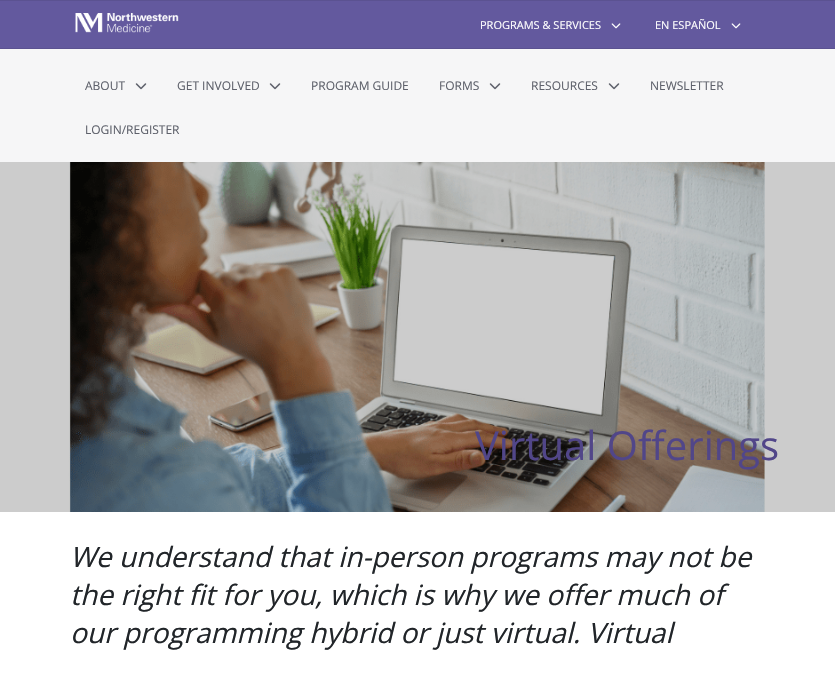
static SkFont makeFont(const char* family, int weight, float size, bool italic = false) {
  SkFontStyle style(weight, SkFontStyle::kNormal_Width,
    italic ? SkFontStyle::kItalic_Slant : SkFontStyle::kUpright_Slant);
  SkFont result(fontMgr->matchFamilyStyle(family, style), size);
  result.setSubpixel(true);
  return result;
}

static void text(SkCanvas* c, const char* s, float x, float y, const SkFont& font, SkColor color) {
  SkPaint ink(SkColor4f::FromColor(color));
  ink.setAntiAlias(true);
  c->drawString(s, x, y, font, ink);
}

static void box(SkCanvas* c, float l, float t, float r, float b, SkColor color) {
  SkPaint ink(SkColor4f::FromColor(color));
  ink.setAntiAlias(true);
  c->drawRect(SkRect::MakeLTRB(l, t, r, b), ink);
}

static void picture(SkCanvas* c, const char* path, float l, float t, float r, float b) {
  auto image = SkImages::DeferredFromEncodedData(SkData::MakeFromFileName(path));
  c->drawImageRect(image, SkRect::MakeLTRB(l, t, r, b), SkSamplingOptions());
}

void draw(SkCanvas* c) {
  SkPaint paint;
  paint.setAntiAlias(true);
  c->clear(0xffffffff);
  box(c, 0, 1, 835, 48, 0xff63599e);
  box(c, 0, 0, 835, 1, 0xff5b5291);
  box(c, 0, 48, 835, 49, 0xff5b5291);
  picture(c, "img_01.png", 75, 13, 179, 33);
  SkFont face1 = makeFont("Open Sans", 400, 11);
  text(c, "PROGRAMS & SERVICES", 480, 29, face1, 0xffffffff);
  picture(c, "img_02.png", 611, 23, 621, 29);
  text(c, "EN ESPAÑOL", 655, 29, face1, 0xffffffff);
  picture(c, "img_02.png", 731, 23, 741, 29);
  box(c, 0, 49, 835, 162, 0xfff6f6f7);
  SkFont face2 = makeFont("Open Sans", 400, 12);
  text(c, "ABOUT", 85, 90, face2, 0xff5e616b);
  picture(c, "img_03.png", 135, 83, 147, 90);
  text(c, "GET INVOLVED", 177, 90, face2, 0xff5e616b);
  picture(c, "img_03.png", 269, 83, 281, 90);
  text(c, "PROGRAM GUIDE", 311, 90, face2, 0xff5e616b);
  text(c, "FORMS", 439, 90, face2, 0xff5e616b);
  picture(c, "img_03.png", 489, 83, 501, 90);
  text(c, "RESOURCES", 531, 90, face2, 0xff5e616b);
  picture(c, "img_03.png", 608, 83, 620, 90);
  text(c, "NEWSLETTER", 650, 90, face2, 0xff5e616b);
  text(c, "LOGIN/REGISTER", 85, 134, face2, 0xff5e616b);
  picture(c, "img_04.png", 0, 162, 835, 512);
  SkFont face3 = makeFont("Open Sans", 400, 40);
  text(c, "Virtual Offerings", 475, 460, face3, 0xff514689);
  SkFont face4 = makeFont("Open Sans", 400, 28, true);
  text(c, "We understand that in-person programs may not be", 70, 567, face4, 0xff212529);
  text(c, "the right fit for you, which is why we offer much of", 70, 605, face4, 0xff212529);
  text(c, "our programming hybrid or just virtual. Virtual", 70, 643, face4, 0xff212529);
}
